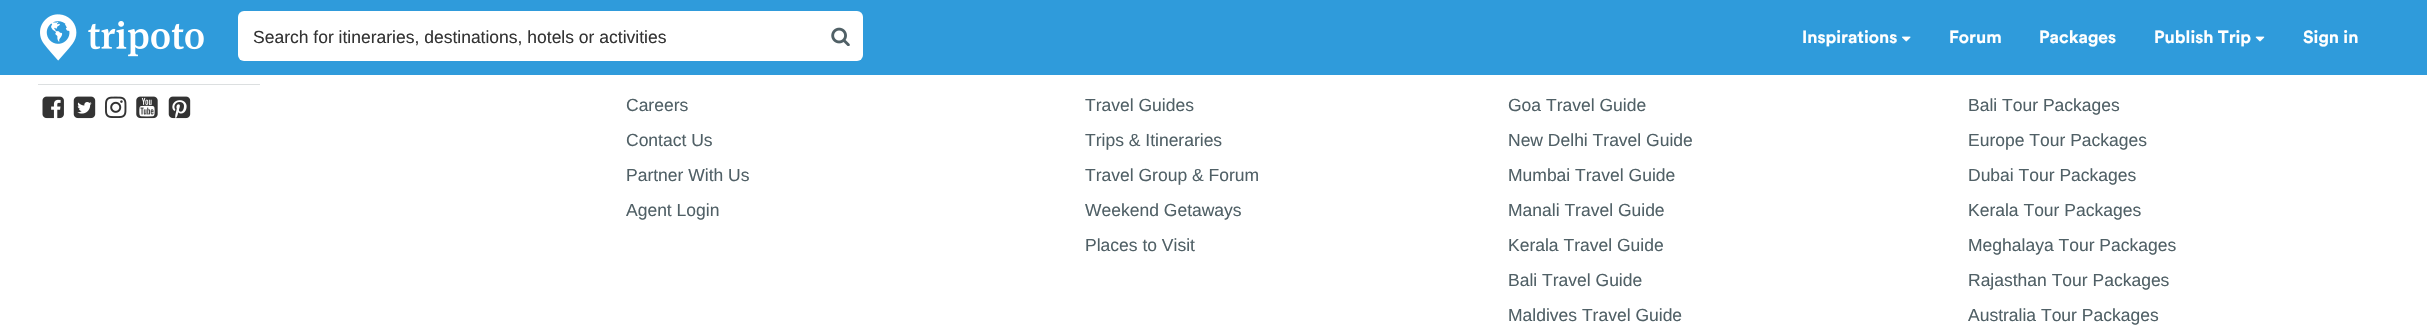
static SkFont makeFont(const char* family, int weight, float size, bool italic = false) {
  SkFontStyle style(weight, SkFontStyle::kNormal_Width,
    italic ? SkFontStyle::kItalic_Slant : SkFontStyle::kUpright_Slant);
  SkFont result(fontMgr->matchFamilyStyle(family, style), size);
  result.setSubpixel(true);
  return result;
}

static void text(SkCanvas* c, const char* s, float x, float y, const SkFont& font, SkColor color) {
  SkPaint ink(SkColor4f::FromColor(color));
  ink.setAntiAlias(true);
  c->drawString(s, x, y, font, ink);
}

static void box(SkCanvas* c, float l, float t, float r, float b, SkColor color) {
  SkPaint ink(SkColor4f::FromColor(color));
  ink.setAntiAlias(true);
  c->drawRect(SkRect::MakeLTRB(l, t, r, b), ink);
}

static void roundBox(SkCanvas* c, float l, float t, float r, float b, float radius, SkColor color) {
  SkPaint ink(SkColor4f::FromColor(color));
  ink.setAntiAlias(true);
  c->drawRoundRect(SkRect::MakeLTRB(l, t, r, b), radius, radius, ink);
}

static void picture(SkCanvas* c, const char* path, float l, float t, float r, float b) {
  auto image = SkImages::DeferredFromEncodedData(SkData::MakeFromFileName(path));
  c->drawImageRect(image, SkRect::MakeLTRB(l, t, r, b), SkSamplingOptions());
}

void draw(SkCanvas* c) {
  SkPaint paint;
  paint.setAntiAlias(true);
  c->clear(0xffffffff);
  box(c, 0, 0, 2427, 75, 0xff2f9bdb);
  picture(c, "img_01.png", 40, 14, 204, 61);
  roundBox(c, 238, 11, 863, 61, 6, 0xffffffff);
  SkFont face1 = makeFont("Liberation Sans", 400, 17.5f);
  text(c, "Search for itineraries, destinations, hotels or activities", 253, 43, face1, 0xff333333);
  picture(c, "img_02.png", 831, 27, 850, 46);
  SkFont face2 = makeFont("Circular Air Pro", 700, 17.5f);
  text(c, "Inspirations", 1802, 43, face2, 0xffffffff);
  picture(c, "img_03.png", 1902, 36, 1911, 42);
  text(c, "Forum", 1949, 43, face2, 0xffffffff);
  text(c, "Packages", 2039, 43, face2, 0xffffffff);
  text(c, "Publish Trip", 2154, 43, face2, 0xffffffff);
  picture(c, "img_04.png", 2255, 36, 2265, 42);
  text(c, "Sign in", 2303, 43, face2, 0xffffffff);
  box(c, 38, 84, 260, 85, 0xffdcdfe0);
  picture(c, "img_05.png", 42, 96, 64, 119);
  picture(c, "img_06.png", 73, 96, 96, 119);
  picture(c, "img_07.png", 105, 96, 127, 118);
  picture(c, "img_08.png", 136, 96, 158, 119);
  picture(c, "img_09.png", 168, 96, 191, 119);
  text(c, "Careers", 626, 111, face1, 0xff506066);
  text(c, "Contact Us", 626, 146, face1, 0xff506066);
  text(c, "Partner With Us", 626, 181, face1, 0xff506066);
  text(c, "Agent Login", 626, 216, face1, 0xff506066);
  text(c, "Travel Guides", 1085, 111, face1, 0xff506066);
  text(c, "Trips & Itineraries", 1085, 146, face1, 0xff506066);
  text(c, "Travel Group & Forum", 1085, 181, face1, 0xff506066);
  text(c, "Weekend Getaways", 1085, 216, face1, 0xff506066);
  text(c, "Places to Visit", 1085, 251, face1, 0xff506066);
  text(c, "Goa Travel Guide", 1508, 111, face1, 0xff506066);
  text(c, "New Delhi Travel Guide", 1508, 146, face1, 0xff506066);
  text(c, "Mumbai Travel Guide", 1508, 181, face1, 0xff506066);
  text(c, "Manali Travel Guide", 1508, 216, face1, 0xff506066);
  text(c, "Kerala Travel Guide", 1508, 251, face1, 0xff506066);
  text(c, "Bali Travel Guide", 1508, 286, face1, 0xff506066);
  text(c, "Maldives Travel Guide", 1508, 321, face1, 0xff506066);
  text(c, "Bali Tour Packages", 1968, 111, face1, 0xff506066);
  text(c, "Europe Tour Packages", 1968, 146, face1, 0xff506066);
  text(c, "Dubai Tour Packages", 1968, 181, face1, 0xff506066);
  text(c, "Kerala Tour Packages", 1968, 216, face1, 0xff506066);
  text(c, "Meghalaya Tour Packages", 1968, 251, face1, 0xff506066);
  text(c, "Rajasthan Tour Packages", 1968, 286, face1, 0xff506066);
  text(c, "Australia Tour Packages", 1968, 321, face1, 0xff506066);
}
